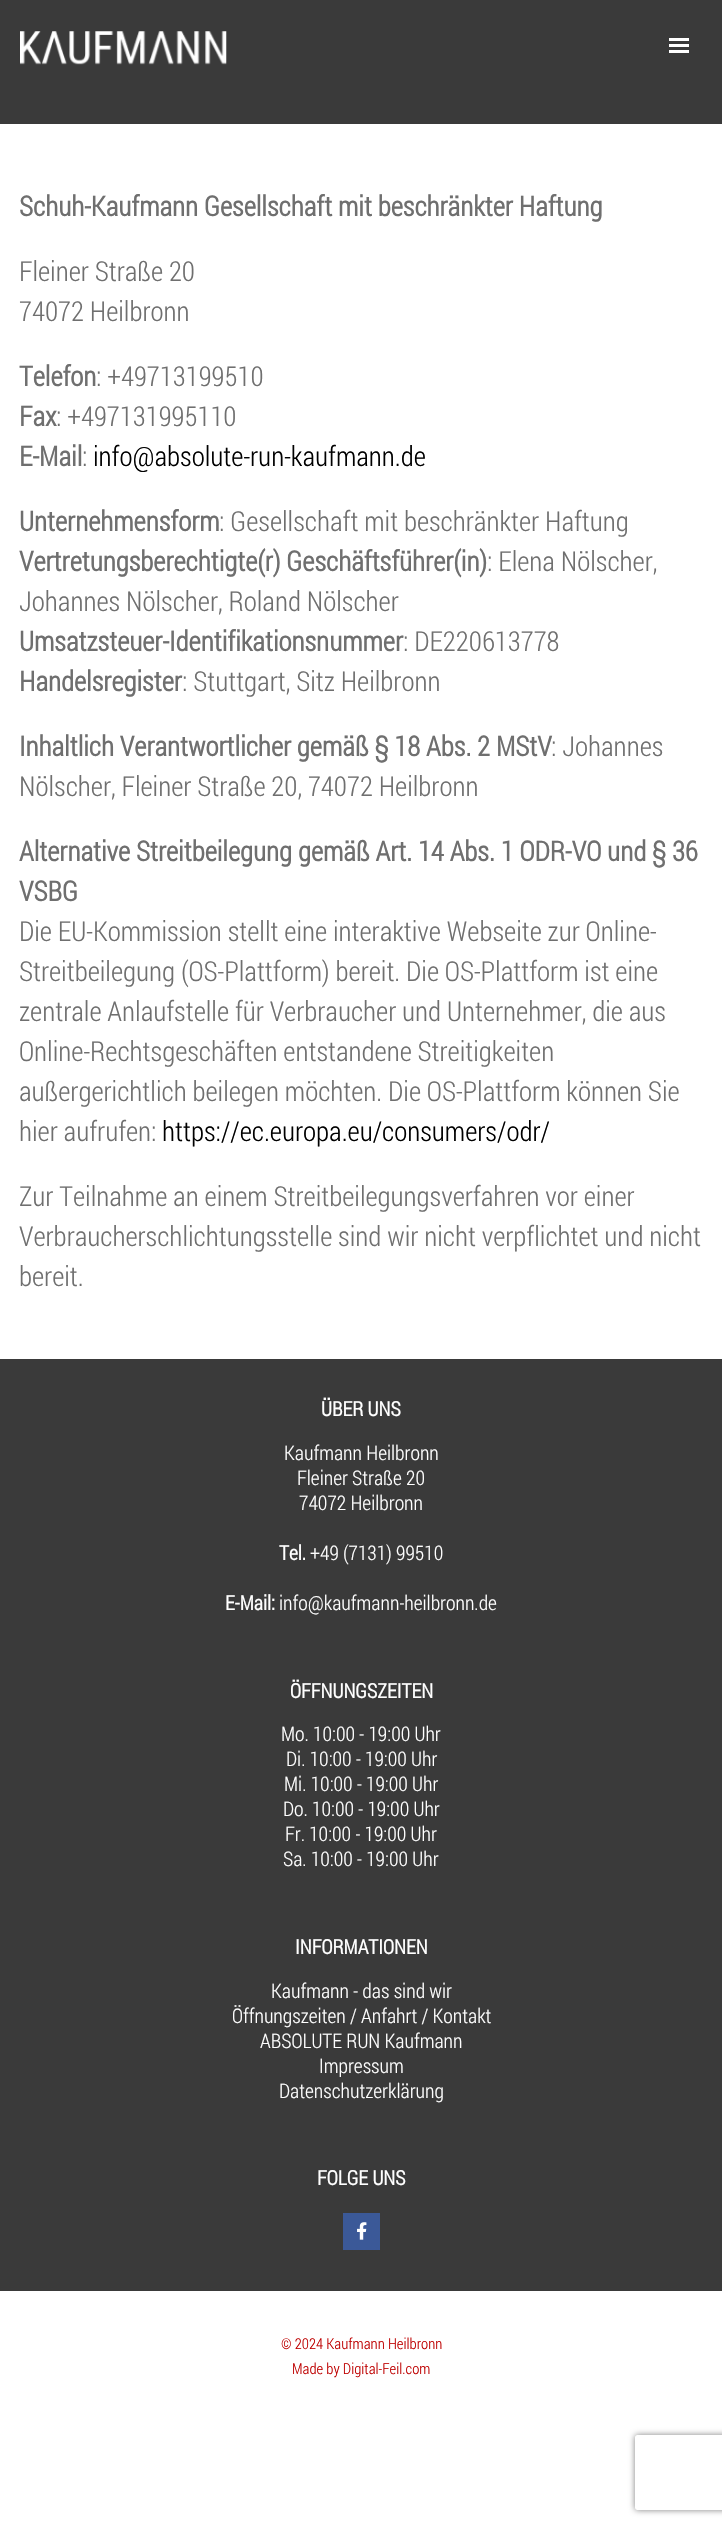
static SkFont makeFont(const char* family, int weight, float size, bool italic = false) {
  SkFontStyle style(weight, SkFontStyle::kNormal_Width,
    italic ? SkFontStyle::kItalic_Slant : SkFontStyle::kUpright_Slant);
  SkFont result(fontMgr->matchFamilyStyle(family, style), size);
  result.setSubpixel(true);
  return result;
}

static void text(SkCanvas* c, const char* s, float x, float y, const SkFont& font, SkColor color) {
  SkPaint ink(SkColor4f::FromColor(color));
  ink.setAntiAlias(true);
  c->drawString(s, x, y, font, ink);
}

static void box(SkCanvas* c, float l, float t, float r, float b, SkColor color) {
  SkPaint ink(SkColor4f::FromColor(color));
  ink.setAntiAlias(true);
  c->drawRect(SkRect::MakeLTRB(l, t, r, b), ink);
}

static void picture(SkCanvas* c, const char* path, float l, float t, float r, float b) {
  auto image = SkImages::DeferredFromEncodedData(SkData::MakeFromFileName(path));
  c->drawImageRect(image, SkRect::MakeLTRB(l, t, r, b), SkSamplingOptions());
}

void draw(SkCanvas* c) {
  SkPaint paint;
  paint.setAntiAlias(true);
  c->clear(0xffffffff);
  box(c, 0, 0, 722, 124, 0xff3a3a3a);
  picture(c, "img_01.png", 20, 31, 227, 65);
  box(c, 669, 38, 689, 41, 0xffffffff);
  box(c, 669, 44, 689, 47, 0xffffffff);
  box(c, 669, 50, 689, 53, 0xffffffff);
  SkFont face1 = makeFont("Roboto Condensed", 700, 27.5f);
  text(c, "Schuh-Kaufmann Gesellschaft mit beschränkter Haftung", 19, 216, face1, 0xff6f6f6f);
  SkFont face2 = makeFont("Roboto Condensed", 300, 27.5f);
  text(c, "Fleiner Straße 20", 19, 281, face2, 0xff6f6f6f);
  text(c, "74072 Heilbronn", 19, 321, face2, 0xff6f6f6f);
  text(c, "Telefon", 19, 386, face1, 0xff6f6f6f);
  text(c, ": +49713199510", 96, 386, face2, 0xff6f6f6f);
  text(c, "Fax", 19, 426, face1, 0xff6f6f6f);
  text(c, ": +497131995110", 56, 426, face2, 0xff6f6f6f);
  text(c, "E-Mail", 19, 466, face1, 0xff6f6f6f);
  text(c, ":", 82, 466, face2, 0xff6f6f6f);
  text(c, "info@absolute-run-kaufmann.de", 93, 466, face2, 0xff000000);
  text(c, "Unternehmensform", 19, 531, face1, 0xff6f6f6f);
  text(c, ": Gesellschaft mit beschränkter Haftung", 219, 531, face2, 0xff6f6f6f);
  text(c, "Vertretungsberechtigte(r) Geschäftsführer(in)", 19, 571, face1, 0xff6f6f6f);
  text(c, ": Elena Nölscher,", 487, 571, face2, 0xff6f6f6f);
  text(c, "Johannes Nölscher, Roland Nölscher", 19, 611, face2, 0xff6f6f6f);
  text(c, "Umsatzsteuer-Identifikationsnummer", 19, 651, face1, 0xff6f6f6f);
  text(c, ": DE220613778", 403, 651, face2, 0xff6f6f6f);
  text(c, "Handelsregister", 19, 691, face1, 0xff6f6f6f);
  text(c, ": Stuttgart, Sitz Heilbronn", 182, 691, face2, 0xff6f6f6f);
  text(c, "Inhaltlich Verantwortlicher gemäß § 18 Abs. 2 MStV", 19, 756, face1, 0xff6f6f6f);
  text(c, ": Johannes", 551, 756, face2, 0xff6f6f6f);
  text(c, "Nölscher, Fleiner Straße 20, 74072 Heilbronn", 19, 796, face2, 0xff6f6f6f);
  text(c, "Alternative Streitbeilegung gemäß Art. 14 Abs. 1 ODR-VO und § 36", 19, 861, face1, 0xff6f6f6f);
  text(c, "VSBG", 19, 901, face1, 0xff6f6f6f);
  text(c, "Die EU-Kommission stellt eine interaktive Webseite zur Online-", 19, 941, face2, 0xff6f6f6f);
  text(c, "Streitbeilegung (OS-Plattform) bereit. Die OS-Plattform ist eine", 19, 981, face2, 0xff6f6f6f);
  text(c, "zentrale Anlaufstelle für Verbraucher und Unternehmer, die aus", 19, 1021, face2, 0xff6f6f6f);
  text(c, "Online-Rechtsgeschäften entstandene Streitigkeiten", 19, 1061, face2, 0xff6f6f6f);
  text(c, "außergerichtlich beilegen möchten. Die OS-Plattform können Sie", 19, 1101, face2, 0xff6f6f6f);
  text(c, "hier aufrufen:", 19, 1141, face2, 0xff6f6f6f);
  text(c, "https://ec.europa.eu/consumers/odr/", 162, 1141, face2, 0xff000000);
  text(c, "Zur Teilnahme an einem Streitbeilegungsverfahren vor einer", 19, 1206, face2, 0xff6f6f6f);
  text(c, "Verbraucherschlichtungsstelle sind wir nicht verpflichtet und nicht", 19, 1246, face2, 0xff6f6f6f);
  text(c, "bereit.", 19, 1286, face2, 0xff6f6f6f);
  box(c, 0, 1359, 722, 2291, 0xff3a3a3a);
  SkFont face3 = makeFont("Roboto Condensed", 700, 20);
  text(c, "ÜBER UNS", 321, 1416, face3, 0xffffffff);
  SkFont face4 = makeFont("Roboto Condensed", 300, 20);
  text(c, "Kaufmann Heilbronn", 284, 1460, face4, 0xffffffff);
  text(c, "Fleiner Straße 20", 297, 1485, face4, 0xffffffff);
  text(c, "74072 Heilbronn", 299, 1510, face4, 0xffffffff);
  text(c, "Tel.", 279, 1560, face3, 0xffffffff);
  text(c, "+49 (7131) 99510", 310, 1560, face4, 0xffffffff);
  text(c, "E-Mail:", 225, 1610, face3, 0xffffffff);
  text(c, "info@kaufmann-heilbronn.de", 279, 1610, face4, 0xffffffff);
  text(c, "ÖFFNUNGSZEITEN", 290, 1698, face3, 0xffffffff);
  text(c, "Mo. 10:00 - 19:00 Uhr", 281, 1741, face4, 0xffffffff);
  text(c, "Di. 10:00 - 19:00 Uhr", 286, 1766, face4, 0xffffffff);
  text(c, "Mi. 10:00 - 19:00 Uhr", 284, 1791, face4, 0xffffffff);
  text(c, "Do. 10:00 - 19:00 Uhr", 283, 1816, face4, 0xffffffff);
  text(c, "Fr. 10:00 - 19:00 Uhr", 285, 1841, face4, 0xffffffff);
  text(c, "Sa. 10:00 - 19:00 Uhr", 283, 1866, face4, 0xffffffff);
  text(c, "INFORMATIONEN", 295, 1954, face3, 0xffffffff);
  text(c, "Kaufmann - das sind wir", 271, 1998, face4, 0xffffffff);
  text(c, "Öffnungszeiten / Anfahrt / Kontakt", 232, 2023, face4, 0xffffffff);
  text(c, "ABSOLUTE RUN Kaufmann", 260, 2048, face4, 0xffffffff);
  text(c, "Impressum", 319, 2073, face4, 0xffffffff);
  text(c, "Datenschutzerklärung", 279, 2098, face4, 0xffffffff);
  text(c, "FOLGE UNS", 317, 2185, face3, 0xffffffff);
  box(c, 343, 2213, 380, 2250, 0xff3b5998);
  picture(c, "img_02.png", 357, 2222, 367, 2240);
  SkFont face5 = makeFont("Roboto Condensed", 300, 15);
  text(c, "© 2024 Kaufmann Heilbronn", 281, 2349, face5, 0xffbe0000);
  text(c, "Made by Digital-Feil.com", 292, 2374, face5, 0xffbe0000);
  c->save();
  c->clipPath(SkPathBuilder(SkPathFillType::kEvenOdd).moveTo(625, 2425).lineTo(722, 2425).lineTo(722, 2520).lineTo(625, 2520).close().moveTo(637.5f, 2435).lineTo(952.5f, 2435).cubicTo(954, 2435, 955, 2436, 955, 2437.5f).lineTo(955, 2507.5f).cubicTo(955, 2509, 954, 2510, 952.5f, 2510).lineTo(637.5f, 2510).cubicTo(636, 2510, 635, 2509, 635, 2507.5f).lineTo(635, 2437.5f).cubicTo(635, 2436, 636, 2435, 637.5f, 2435).close().detach(), true);
  paint.setColor(0xff808080);
  paint.setMaskFilter(SkMaskFilter::MakeBlur(kNormal_SkBlurStyle, 3));
  c->drawRoundRect(SkRect::MakeLTRB(635, 2435, 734, 2510), 2.5f, 2.5f, paint);
  paint.setMaskFilter(nullptr);
  c->restore();
}
